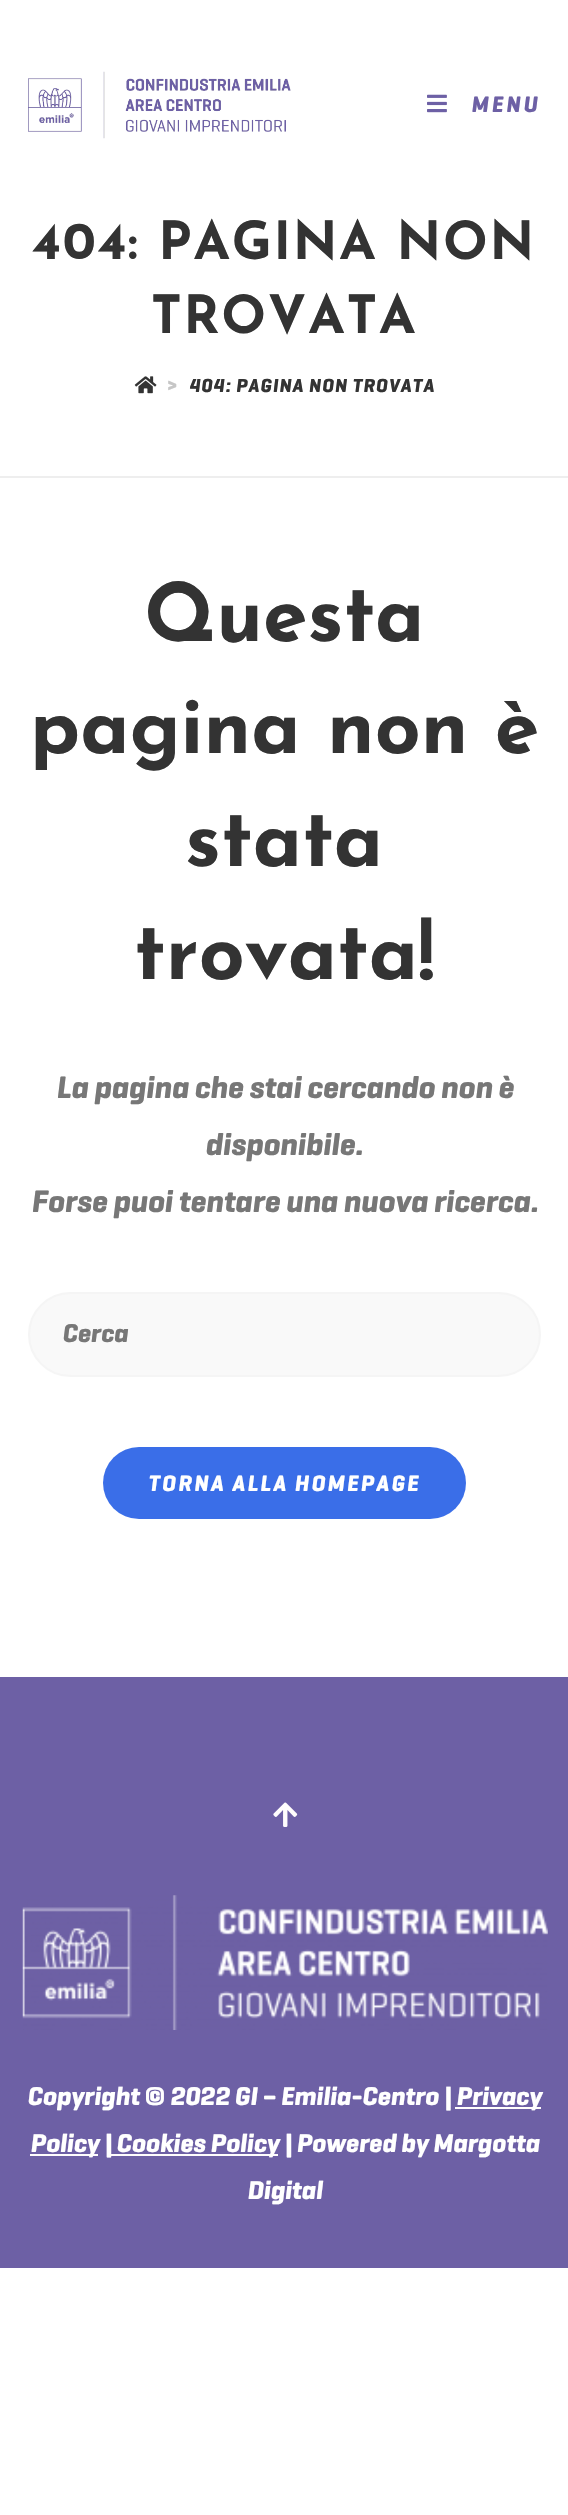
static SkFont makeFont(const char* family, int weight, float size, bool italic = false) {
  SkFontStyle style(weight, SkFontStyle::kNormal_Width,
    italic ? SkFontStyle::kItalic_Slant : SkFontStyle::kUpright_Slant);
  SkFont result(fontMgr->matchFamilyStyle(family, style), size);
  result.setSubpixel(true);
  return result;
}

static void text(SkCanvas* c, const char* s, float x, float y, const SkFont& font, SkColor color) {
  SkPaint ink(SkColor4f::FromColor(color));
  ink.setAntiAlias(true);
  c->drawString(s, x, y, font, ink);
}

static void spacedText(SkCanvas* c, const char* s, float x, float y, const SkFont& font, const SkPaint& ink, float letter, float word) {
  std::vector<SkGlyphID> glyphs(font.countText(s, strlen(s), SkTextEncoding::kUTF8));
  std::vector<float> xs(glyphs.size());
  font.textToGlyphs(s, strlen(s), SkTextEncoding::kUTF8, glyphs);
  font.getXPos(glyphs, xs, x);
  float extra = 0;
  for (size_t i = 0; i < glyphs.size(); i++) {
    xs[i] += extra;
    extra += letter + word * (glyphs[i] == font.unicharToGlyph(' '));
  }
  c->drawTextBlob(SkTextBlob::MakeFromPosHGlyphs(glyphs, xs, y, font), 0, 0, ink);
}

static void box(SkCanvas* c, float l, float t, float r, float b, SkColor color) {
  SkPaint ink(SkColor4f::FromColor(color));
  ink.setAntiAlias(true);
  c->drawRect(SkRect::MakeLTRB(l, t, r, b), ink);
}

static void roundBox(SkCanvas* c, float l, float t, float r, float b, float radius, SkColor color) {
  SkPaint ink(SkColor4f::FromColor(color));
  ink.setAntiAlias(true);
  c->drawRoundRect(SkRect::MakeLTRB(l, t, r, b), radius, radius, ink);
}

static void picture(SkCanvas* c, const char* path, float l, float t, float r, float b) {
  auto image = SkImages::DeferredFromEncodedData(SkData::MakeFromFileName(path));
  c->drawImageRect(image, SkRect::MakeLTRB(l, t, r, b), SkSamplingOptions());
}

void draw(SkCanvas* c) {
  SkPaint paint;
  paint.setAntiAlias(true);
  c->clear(0xffffffff);
  picture(c, "img_01.png", 28, 71, 291, 139);
  picture(c, "img_02.png", 427, 94, 447, 113);
  SkFont face1 = makeFont("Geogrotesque", 700, 22.75f);
  paint.setColor(0xff6d60a5);
  spacedText(c, "MENU", 471, 112, face1, paint, 3, 0);
  box(c, 0, 476, 568, 478, 0xffeeeeee);
  SkFont face2 = makeFont("Josefin Sans", 700, 52.5f);
  paint.setColor(0xff333333);
  spacedText(c, "404: PAGINA NON", 32, 259, face2, paint, 1.75f, 0);
  spacedText(c, "TROVATA", 151, 333, face2, paint, 1.75f, 0);
  picture(c, "img_03.png", 134, 376, 157, 394);
  SkFont face3 = makeFont("Geogrotesque", 700, 19.25f);
  paint.setColor(0xffc6c6c6);
  spacedText(c, ">", 167, 392, face3, paint, 1.05f, 0);
  paint.setColor(0xff333333);
  spacedText(c, "404: PAGINA NON TROVATA", 189, 392, face3, paint, 1.05f, 0);
  SkFont face4 = makeFont("Josefin Sans", 700, 80.5f);
  text(c, "Questa", 144, 641, face4, 0xff333333);
  text(c, "pagina non è", 30, 753, face4, 0xff333333);
  text(c, "stata", 185, 866, face4, 0xff333333);
  text(c, "trovata!", 134, 979, face4, 0xff333333);
  SkFont face5 = makeFont("Geogrotesque", 700, 31.5f);
  text(c, "La pagina che stai cercando non è", 56, 1098, face5, 0xff777777);
  text(c, "disponibile.", 205, 1155, face5, 0xff777777);
  text(c, "Forse puoi tentare una nuova ricerca.", 31, 1212, face5, 0xff777777);
  paint.setColor(0xfff9f9f9);
  c->drawRoundRect(SkRect::MakeLTRB(29, 1293, 540, 1376), 41.5f, 41.5f, paint);
  paint.setStyle(SkPaint::kStroke_Style);
  paint.setStrokeWidth(2);
  paint.setColor(0xfff5f5f5);
  c->drawRoundRect(SkRect::MakeLTRB(29, 1293, 540, 1376), 41.5f, 41.5f, paint);
  SkFont face6 = makeFont("Geogrotesque", 700, 26.25f);
  text(c, "Cerca", 62, 1342, face6, 0xff777777);
  roundBox(c, 103, 1447, 466, 1519, 36, 0xff3a6ee8);
  paint.setStyle(SkPaint::kFill_Style);
  paint.setColor(0xffffffff);
  spacedText(c, "TORNA ALLA HOMEPAGE", 148, 1491, face1, paint, 2.25f, 0);
  box(c, 0, 1677, 568, 2268, 0xff6d60a5);
  picture(c, "img_04.png", 273, 1802, 298, 1827);
  picture(c, "img_05.png", 22, 1895, 548, 2030);
  text(c, "Copyright © 2022 GI – Emilia-Centro |", 27, 2105, face6, 0xffffffff);
  box(c, 455, 2107, 541, 2109, 0xfffffdfd);
  text(c, "Privacy", 456, 2105, face6, 0xffffffff);
  box(c, 30, 2154, 98, 2156, 0xfffffdfd);
  text(c, "Policy |", 30, 2152, face6, 0xffffffff);
  box(c, 110, 2154, 278, 2156, 0xfffffdfd);
  text(c, "Cookies Policy | Powered by Margotta", 116, 2152, face6, 0xffffffff);
  text(c, "Digital", 247, 2199, face6, 0xffffffff);
}
